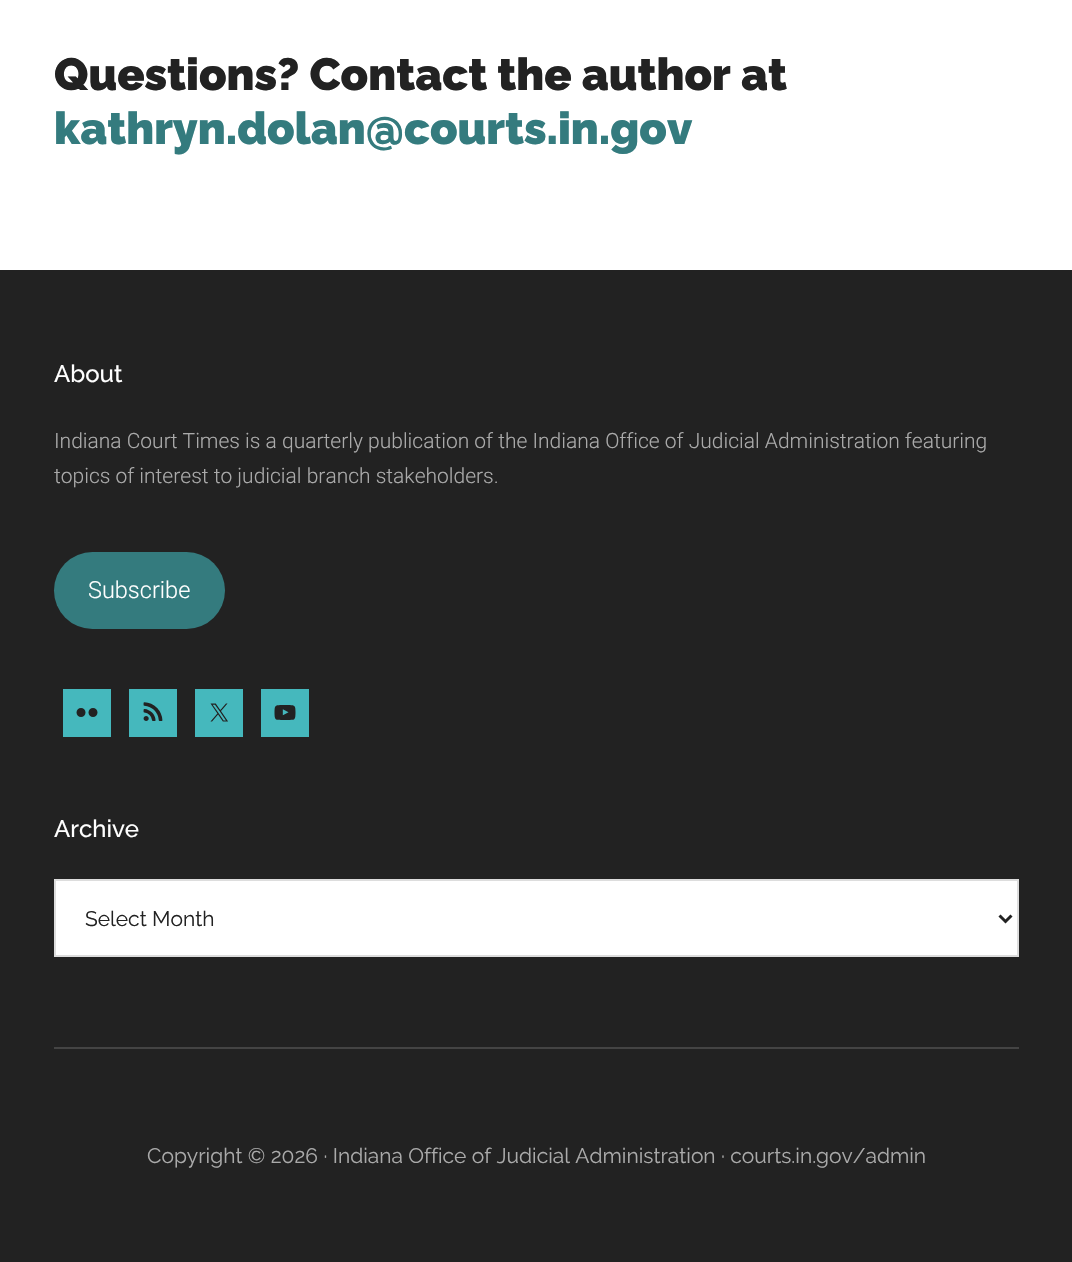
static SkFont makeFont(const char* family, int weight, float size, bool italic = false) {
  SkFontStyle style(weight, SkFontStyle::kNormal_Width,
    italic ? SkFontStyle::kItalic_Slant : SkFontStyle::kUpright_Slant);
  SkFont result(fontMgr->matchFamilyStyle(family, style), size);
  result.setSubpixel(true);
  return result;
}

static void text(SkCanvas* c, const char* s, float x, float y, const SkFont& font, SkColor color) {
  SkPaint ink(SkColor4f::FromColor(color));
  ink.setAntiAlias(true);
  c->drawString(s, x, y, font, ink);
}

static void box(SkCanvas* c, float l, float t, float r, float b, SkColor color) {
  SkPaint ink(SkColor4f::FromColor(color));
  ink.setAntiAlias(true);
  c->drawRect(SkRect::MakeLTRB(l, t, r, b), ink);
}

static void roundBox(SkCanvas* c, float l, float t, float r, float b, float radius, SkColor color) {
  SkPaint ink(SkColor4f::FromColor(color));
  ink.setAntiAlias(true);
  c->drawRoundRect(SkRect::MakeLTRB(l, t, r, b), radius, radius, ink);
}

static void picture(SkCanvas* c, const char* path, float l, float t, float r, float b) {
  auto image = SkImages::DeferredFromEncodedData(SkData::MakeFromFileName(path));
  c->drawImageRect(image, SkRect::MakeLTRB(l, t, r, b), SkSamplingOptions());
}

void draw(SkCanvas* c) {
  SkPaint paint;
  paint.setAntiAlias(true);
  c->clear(0xffffffff);
  SkFont face1 = makeFont("Raleway", 900, 45);
  text(c, "Questions? Contact the author at", 54, 90, face1, 0xff222222);
  text(c, "kathryn.dolan@courts.in.gov", 54, 144, face1, 0xff347b7e);
  box(c, 0, 270, 1072, 1262, 0xff222222);
  SkFont face2 = makeFont("Raleway", 500, 24);
  text(c, "About", 54, 382, face2, 0xffffffff);
  SkFont face3 = makeFont("Roboto", 300, 21);
  text(c, "Indiana Court Times is a quarterly publication of the Indiana Office of Judicial Administration featuring", 54, 448, face3, 0xffaaaaaa);
  text(c, "topics of interest to judicial branch stakeholders.", 54, 483, face3, 0xffaaaaaa);
  roundBox(c, 54, 552, 225, 629, 38.5f, 0xff347b7e);
  SkFont face4 = makeFont("Roboto", 300, 23.5f);
  text(c, "Subscribe", 88, 598, face4, 0xffffffff);
  box(c, 63, 689, 111, 737, 0xff45b8bd);
  picture(c, "img_01.png", 76, 708, 98, 717);
  box(c, 129, 689, 177, 737, 0xff45b8bd);
  picture(c, "img_02.png", 143, 702, 163, 721);
  box(c, 195, 689, 243, 737, 0xff45b8bd);
  picture(c, "img_03.png", 210, 703, 228, 722);
  box(c, 261, 689, 309, 737, 0xff45b8bd);
  picture(c, "img_04.png", 274, 705, 296, 720);
  text(c, "Archive", 54, 837, face2, 0xffffffff);
  paint.setColor(0xffffffff);
  c->drawRect(SkRect::MakeLTRB(55, 880, 1018, 956), paint);
  paint.setStyle(SkPaint::kStroke_Style);
  paint.setStrokeWidth(2);
  paint.setColor(0xffdddddd);
  c->drawRect(SkRect::MakeLTRB(55, 880, 1018, 956), paint);
  paint.setStrokeWidth(3);
  paint.setColor(0xff222222);
  c->drawPath(SkPathBuilder().moveTo(999.5f, 915.5f).lineTo(1005.5f, 921.5f).lineTo(1011.5f, 915.5f).detach(), paint);
  SkFont face5 = makeFont("Raleway", 400, 21);
  text(c, "Select Month", 85, 926, face5, 0xff222222);
  box(c, 54, 1047, 1019, 1049, 0xff444444);
  text(c, "Copyright © 2026 · Indiana Office of Judicial Administration · courts.in.gov/admin", 147, 1163, face5, 0xffaaaaaa);
}
